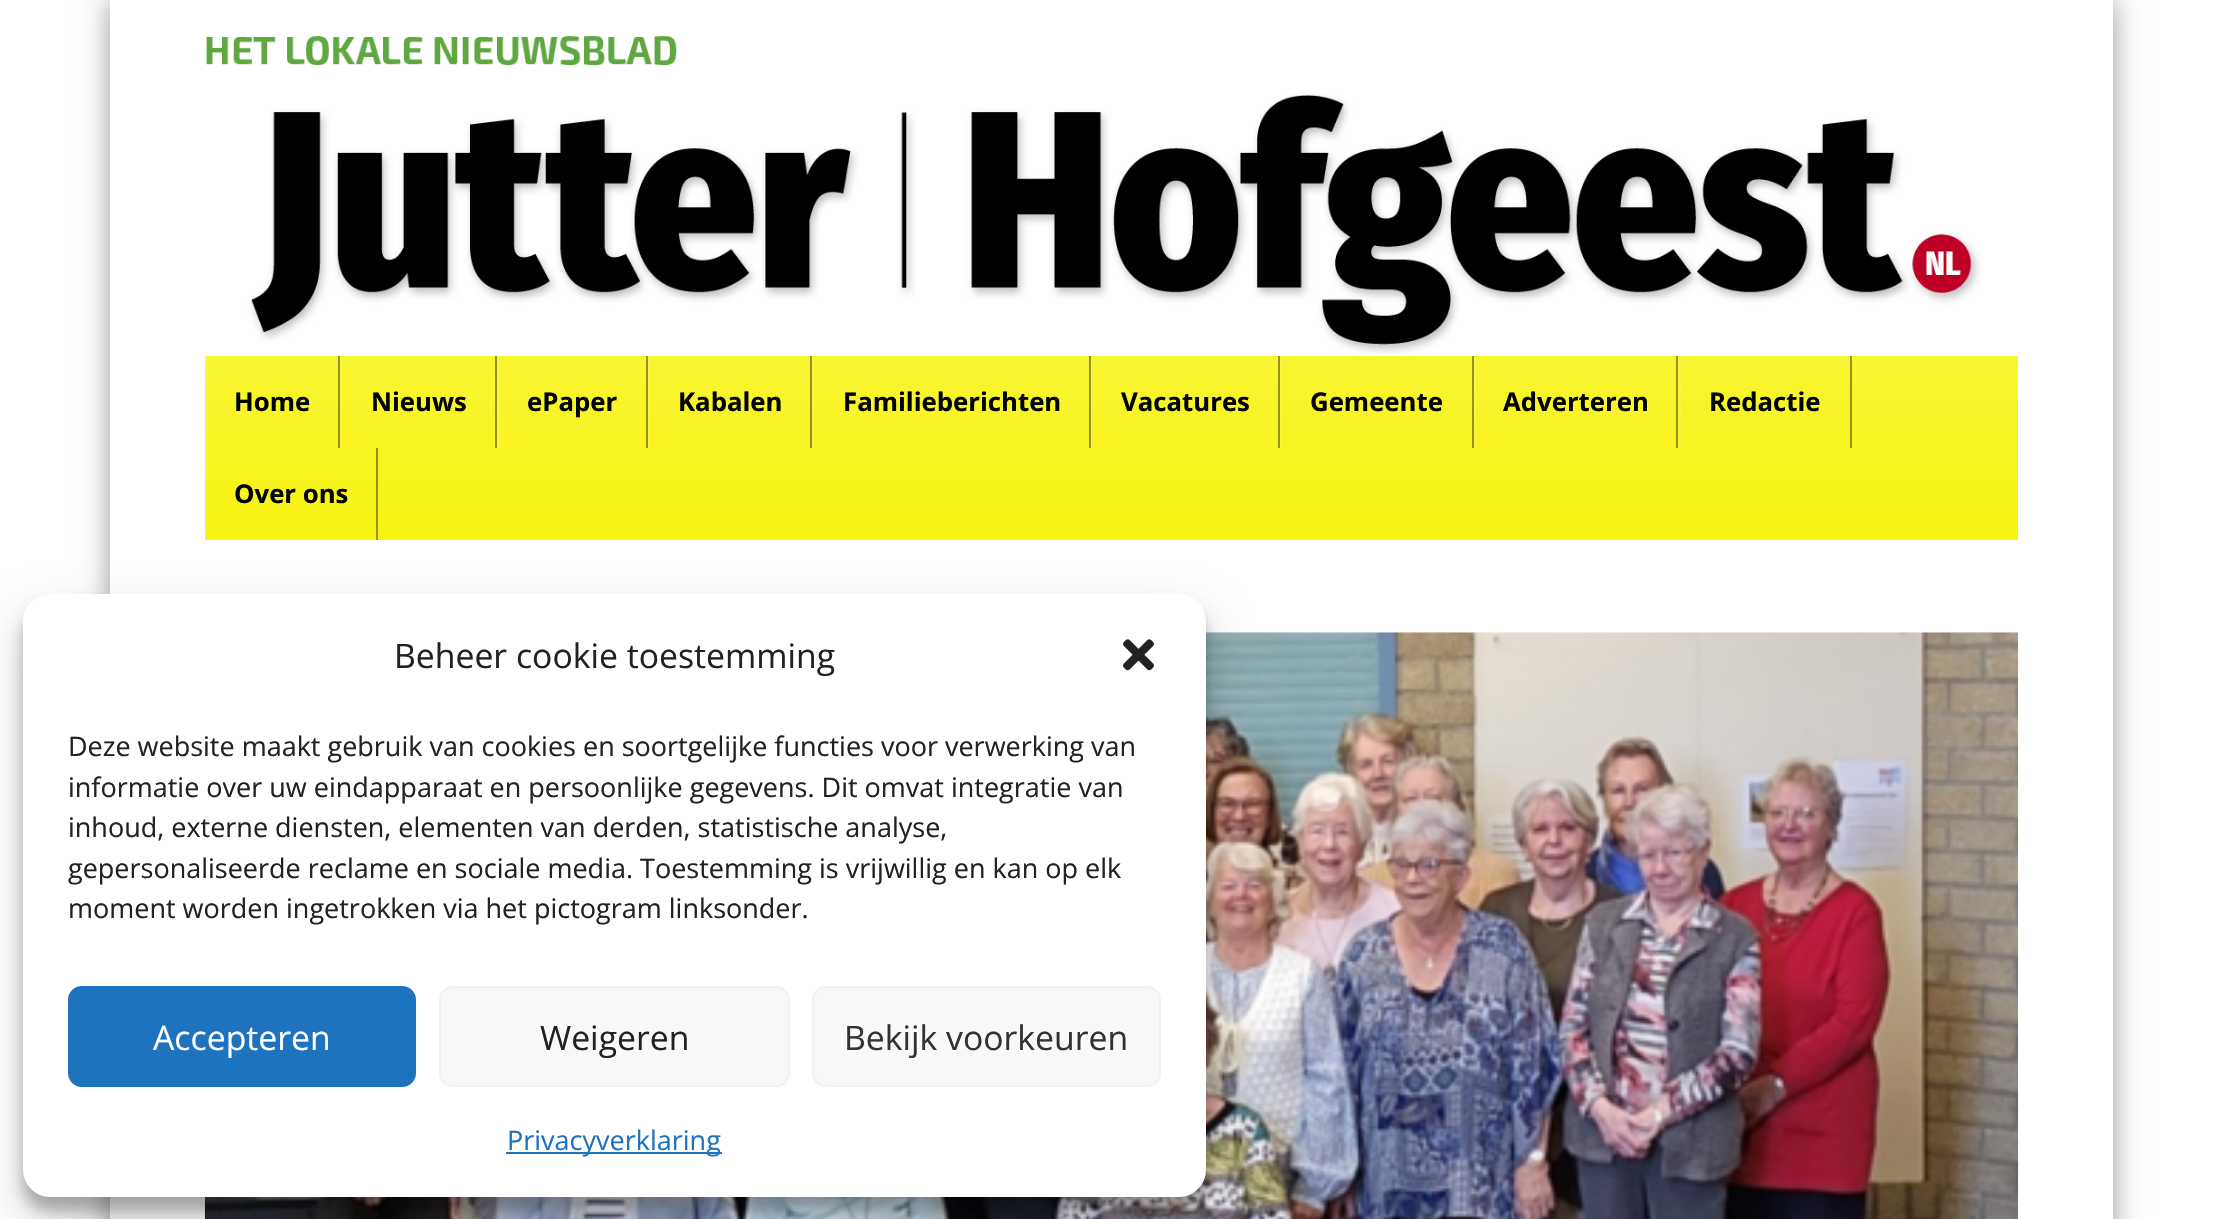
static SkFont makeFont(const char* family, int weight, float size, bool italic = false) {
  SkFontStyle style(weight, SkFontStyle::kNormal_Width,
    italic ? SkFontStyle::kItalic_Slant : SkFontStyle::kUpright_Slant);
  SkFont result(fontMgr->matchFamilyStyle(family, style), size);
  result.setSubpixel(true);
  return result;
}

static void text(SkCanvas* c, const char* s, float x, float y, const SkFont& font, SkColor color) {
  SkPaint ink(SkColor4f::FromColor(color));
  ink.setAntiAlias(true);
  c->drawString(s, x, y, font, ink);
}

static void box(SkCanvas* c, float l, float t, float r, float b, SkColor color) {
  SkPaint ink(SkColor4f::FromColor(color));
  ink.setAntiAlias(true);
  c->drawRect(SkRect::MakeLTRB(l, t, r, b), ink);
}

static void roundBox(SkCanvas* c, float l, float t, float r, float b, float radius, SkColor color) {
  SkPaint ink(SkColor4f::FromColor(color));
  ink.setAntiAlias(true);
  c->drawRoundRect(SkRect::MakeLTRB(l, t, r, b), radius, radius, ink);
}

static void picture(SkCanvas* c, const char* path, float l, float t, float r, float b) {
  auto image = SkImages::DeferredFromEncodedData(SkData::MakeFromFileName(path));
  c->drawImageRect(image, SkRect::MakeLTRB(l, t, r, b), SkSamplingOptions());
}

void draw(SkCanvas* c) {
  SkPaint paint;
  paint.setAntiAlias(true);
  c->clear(0xffffffff);
  paint.setColor(0x66000000);
  paint.setMaskFilter(SkMaskFilter::MakeBlur(kNormal_SkBlurStyle, 13.5f));
  c->drawRect(SkRect::MakeLTRB(110, 0, 2113, 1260), paint);
  paint.setMaskFilter(nullptr);
  box(c, 110, 0, 2113, 1219, 0xffffffff);
  picture(c, "img_01.png", 206, 36, 1981, 355);
  {
    const SkColor colors[] = {0xfff9f532, 0xfff8f311};
    const float stops[] = {0, 1};
    const SkPoint ends[] = {{1112, 355}, {1112, 540}};
    paint.setShader(SkGradientShader::MakeLinear(ends, colors, stops, 2, SkTileMode::kClamp));
    paint.setAlpha(255);
  }
  c->drawRect(SkRect::MakeLTRB(207, 356, 2018, 540), paint);
  {
    const SkColor colors[] = {0xfffaf647, 0xfff9f429};
    const float stops[] = {0, 1};
    const SkPoint ends[] = {{1112, 355}, {1112, 540}};
    paint.setShader(SkGradientShader::MakeLinear(ends, colors, stops, 2, SkTileMode::kClamp));
    paint.setAlpha(255);
  }
  c->drawRect(SkRect::MakeLTRB(205, 448, 207, 540), paint);
  {
    const SkColor colors[] = {0xff95931e, 0xff95920a};
    const float stops[] = {0, 1};
    const SkPoint ends[] = {{1112, 355}, {1112, 540}};
    paint.setShader(SkGradientShader::MakeLinear(ends, colors, stops, 2, SkTileMode::kClamp));
    paint.setAlpha(255);
  }
  c->drawRect(SkRect::MakeLTRB(376, 448, 378, 540), paint);
  {
    const SkColor colors[] = {0xfffaf647, 0xfff9f429};
    const float stops[] = {0, 1};
    const SkPoint ends[] = {{1112, 355}, {1112, 540}};
    paint.setShader(SkGradientShader::MakeLinear(ends, colors, stops, 2, SkTileMode::kClamp));
    paint.setAlpha(255);
  }
  c->drawRect(SkRect::MakeLTRB(1679, 356, 1681, 448), paint);
  {
    const SkColor colors[] = {0xff95931e, 0xff95920a};
    const float stops[] = {0, 1};
    const SkPoint ends[] = {{1112, 355}, {1112, 540}};
    paint.setShader(SkGradientShader::MakeLinear(ends, colors, stops, 2, SkTileMode::kClamp));
    paint.setAlpha(255);
  }
  c->drawRect(SkRect::MakeLTRB(1850, 356, 1852, 448), paint);
  {
    const SkColor colors[] = {0xfffaf647, 0xfff9f429};
    const float stops[] = {0, 1};
    const SkPoint ends[] = {{1112, 355}, {1112, 540}};
    paint.setShader(SkGradientShader::MakeLinear(ends, colors, stops, 2, SkTileMode::kClamp));
    paint.setAlpha(255);
  }
  c->drawRect(SkRect::MakeLTRB(1474, 356, 1476, 448), paint);
  {
    const SkColor colors[] = {0xff95931e, 0xff95920a};
    const float stops[] = {0, 1};
    const SkPoint ends[] = {{1112, 355}, {1112, 540}};
    paint.setShader(SkGradientShader::MakeLinear(ends, colors, stops, 2, SkTileMode::kClamp));
    paint.setAlpha(255);
  }
  c->drawRect(SkRect::MakeLTRB(1676, 356, 1678, 448), paint);
  {
    const SkColor colors[] = {0xfffaf647, 0xfff9f429};
    const float stops[] = {0, 1};
    const SkPoint ends[] = {{1112, 355}, {1112, 540}};
    paint.setShader(SkGradientShader::MakeLinear(ends, colors, stops, 2, SkTileMode::kClamp));
    paint.setAlpha(255);
  }
  c->drawRect(SkRect::MakeLTRB(1280, 356, 1282, 448), paint);
  {
    const SkColor colors[] = {0xff95931e, 0xff95920a};
    const float stops[] = {0, 1};
    const SkPoint ends[] = {{1112, 355}, {1112, 540}};
    paint.setShader(SkGradientShader::MakeLinear(ends, colors, stops, 2, SkTileMode::kClamp));
    paint.setAlpha(255);
  }
  c->drawRect(SkRect::MakeLTRB(1472, 356, 1474, 448), paint);
  {
    const SkColor colors[] = {0xfffaf647, 0xfff9f429};
    const float stops[] = {0, 1};
    const SkPoint ends[] = {{1112, 355}, {1112, 540}};
    paint.setShader(SkGradientShader::MakeLinear(ends, colors, stops, 2, SkTileMode::kClamp));
    paint.setAlpha(255);
  }
  c->drawRect(SkRect::MakeLTRB(1091, 356, 1093, 448), paint);
  {
    const SkColor colors[] = {0xff95931e, 0xff95920a};
    const float stops[] = {0, 1};
    const SkPoint ends[] = {{1112, 355}, {1112, 540}};
    paint.setShader(SkGradientShader::MakeLinear(ends, colors, stops, 2, SkTileMode::kClamp));
    paint.setAlpha(255);
  }
  c->drawRect(SkRect::MakeLTRB(1278, 356, 1280, 448), paint);
  {
    const SkColor colors[] = {0xfffaf647, 0xfff9f429};
    const float stops[] = {0, 1};
    const SkPoint ends[] = {{1112, 355}, {1112, 540}};
    paint.setShader(SkGradientShader::MakeLinear(ends, colors, stops, 2, SkTileMode::kClamp));
    paint.setAlpha(255);
  }
  c->drawRect(SkRect::MakeLTRB(812, 356, 814, 448), paint);
  {
    const SkColor colors[] = {0xff95931e, 0xff95920a};
    const float stops[] = {0, 1};
    const SkPoint ends[] = {{1112, 355}, {1112, 540}};
    paint.setShader(SkGradientShader::MakeLinear(ends, colors, stops, 2, SkTileMode::kClamp));
    paint.setAlpha(255);
  }
  c->drawRect(SkRect::MakeLTRB(1089, 356, 1091, 448), paint);
  {
    const SkColor colors[] = {0xfffaf647, 0xfff9f429};
    const float stops[] = {0, 1};
    const SkPoint ends[] = {{1112, 355}, {1112, 540}};
    paint.setShader(SkGradientShader::MakeLinear(ends, colors, stops, 2, SkTileMode::kClamp));
    paint.setAlpha(255);
  }
  c->drawRect(SkRect::MakeLTRB(648, 356, 650, 448), paint);
  {
    const SkColor colors[] = {0xff95931e, 0xff95920a};
    const float stops[] = {0, 1};
    const SkPoint ends[] = {{1112, 355}, {1112, 540}};
    paint.setShader(SkGradientShader::MakeLinear(ends, colors, stops, 2, SkTileMode::kClamp));
    paint.setAlpha(255);
  }
  c->drawRect(SkRect::MakeLTRB(810, 356, 812, 448), paint);
  {
    const SkColor colors[] = {0xfffaf647, 0xfff9f429};
    const float stops[] = {0, 1};
    const SkPoint ends[] = {{1112, 355}, {1112, 540}};
    paint.setShader(SkGradientShader::MakeLinear(ends, colors, stops, 2, SkTileMode::kClamp));
    paint.setAlpha(255);
  }
  c->drawRect(SkRect::MakeLTRB(497, 356, 499, 448), paint);
  {
    const SkColor colors[] = {0xff95931e, 0xff95920a};
    const float stops[] = {0, 1};
    const SkPoint ends[] = {{1112, 355}, {1112, 540}};
    paint.setShader(SkGradientShader::MakeLinear(ends, colors, stops, 2, SkTileMode::kClamp));
    paint.setAlpha(255);
  }
  c->drawRect(SkRect::MakeLTRB(646, 356, 648, 448), paint);
  {
    const SkColor colors[] = {0xfffaf647, 0xfff9f429};
    const float stops[] = {0, 1};
    const SkPoint ends[] = {{1112, 355}, {1112, 540}};
    paint.setShader(SkGradientShader::MakeLinear(ends, colors, stops, 2, SkTileMode::kClamp));
    paint.setAlpha(255);
  }
  c->drawRect(SkRect::MakeLTRB(340, 356, 342, 448), paint);
  {
    const SkColor colors[] = {0xff95931e, 0xff95920a};
    const float stops[] = {0, 1};
    const SkPoint ends[] = {{1112, 355}, {1112, 540}};
    paint.setShader(SkGradientShader::MakeLinear(ends, colors, stops, 2, SkTileMode::kClamp));
    paint.setAlpha(255);
  }
  c->drawRect(SkRect::MakeLTRB(495, 356, 497, 448), paint);
  {
    const SkColor colors[] = {0xfffaf647, 0xfff9f429};
    const float stops[] = {0, 1};
    const SkPoint ends[] = {{1112, 355}, {1112, 540}};
    paint.setShader(SkGradientShader::MakeLinear(ends, colors, stops, 2, SkTileMode::kClamp));
    paint.setAlpha(255);
  }
  c->drawRect(SkRect::MakeLTRB(205, 356, 207, 448), paint);
  {
    const SkColor colors[] = {0xff95931e, 0xff95920a};
    const float stops[] = {0, 1};
    const SkPoint ends[] = {{1112, 355}, {1112, 540}};
    paint.setShader(SkGradientShader::MakeLinear(ends, colors, stops, 2, SkTileMode::kClamp));
    paint.setAlpha(255);
  }
  c->drawRect(SkRect::MakeLTRB(338, 356, 340, 448), paint);
  SkFont face1 = makeFont("Open Sans", 700, 25.75f);
  text(c, "Home", 234, 411, face1, 0xff000000);
  text(c, "Nieuws", 371, 411, face1, 0xff000000);
  text(c, "ePaper", 527, 411, face1, 0xff000000);
  text(c, "Kabalen", 678, 411, face1, 0xff000000);
  text(c, "Familieberichten", 843, 411, face1, 0xff000000);
  text(c, "Vacatures", 1121, 411, face1, 0xff000000);
  text(c, "Gemeente", 1310, 411, face1, 0xff000000);
  text(c, "Adverteren", 1503, 411, face1, 0xff000000);
  text(c, "Redactie", 1709, 411, face1, 0xff000000);
  text(c, "Over ons", 234, 503, face1, 0xff000000);
  picture(c, "img_02.png", 204, 632, 2019, 1219);
  paint.setShader(nullptr);
  paint.setColor(0x3b000000);
  paint.setMaskFilter(SkMaskFilter::MakeBlur(kNormal_SkBlurStyle, 7));
  c->drawRoundRect(SkRect::MakeLTRB(23, 608, 1206, 1211), 27, 27, paint);
  paint.setMaskFilter(nullptr);
  paint.setColor(0x30000000);
  paint.setMaskFilter(SkMaskFilter::MakeBlur(kNormal_SkBlurStyle, 22.5f));
  c->drawRoundRect(SkRect::MakeLTRB(23, 617, 1206, 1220), 27, 27, paint);
  paint.setMaskFilter(nullptr);
  roundBox(c, 23, 594, 1206, 1197, 27, 0xffffffff);
  SkFont face2 = makeFont("Open Sans", 400, 33.75f);
  text(c, "Beheer cookie toestemming", 394, 668, face2, 0xff222222);
  picture(c, "img_03.png", 1123, 639, 1154, 671);
  SkFont face3 = makeFont("Open Sans", 400, 27);
  text(c, "Deze website maakt gebruik van cookies en soortgelijke functies voor verwerking van", 68, 756, face3, 0xff222222);
  text(c, "informatie over uw eindapparaat en persoonlijke gegevens. Dit omvat integratie van", 68, 797, face3, 0xff222222);
  text(c, "inhoud, externe diensten, elementen van derden, statistische analyse,", 68, 837, face3, 0xff222222);
  text(c, "gepersonaliseerde reclame en sociale media. Toestemming is vrijwillig en kan op elk", 68, 878, face3, 0xff222222);
  text(c, "moment worden ingetrokken via het pictogram linksonder.", 68, 918, face3, 0xff222222);
  paint.setColor(0xff1e73be);
  c->drawRoundRect(SkRect::MakeLTRB(69, 987, 415, 1086), 13, 13, paint);
  paint.setStyle(SkPaint::kStroke_Style);
  paint.setStrokeWidth(2);
  c->drawRoundRect(SkRect::MakeLTRB(69, 987, 415, 1086), 13, 13, paint);
  text(c, "Accepteren", 153, 1050, face2, 0xffffffff);
  paint.setStyle(SkPaint::kFill_Style);
  paint.setColor(0xfff9f9f9);
  c->drawRoundRect(SkRect::MakeLTRB(440, 987, 789, 1086), 13, 13, paint);
  paint.setStyle(SkPaint::kStroke_Style);
  paint.setColor(0xfff2f2f2);
  c->drawRoundRect(SkRect::MakeLTRB(440, 987, 789, 1086), 13, 13, paint);
  text(c, "Weigeren", 540, 1050, face2, 0xff222222);
  paint.setStyle(SkPaint::kFill_Style);
  paint.setColor(0xfff9f9f9);
  c->drawRoundRect(SkRect::MakeLTRB(813, 987, 1160, 1086), 13, 13, paint);
  paint.setStyle(SkPaint::kStroke_Style);
  paint.setColor(0xfff2f2f2);
  c->drawRoundRect(SkRect::MakeLTRB(813, 987, 1160, 1086), 13, 13, paint);
  text(c, "Bekijk voorkeuren", 844, 1050, face2, 0xff333333);
  box(c, 506, 1152, 722, 1154, 0xff1e73be);
  text(c, "Privacyverklaring", 507, 1150, face3, 0xff1e73be);
}
